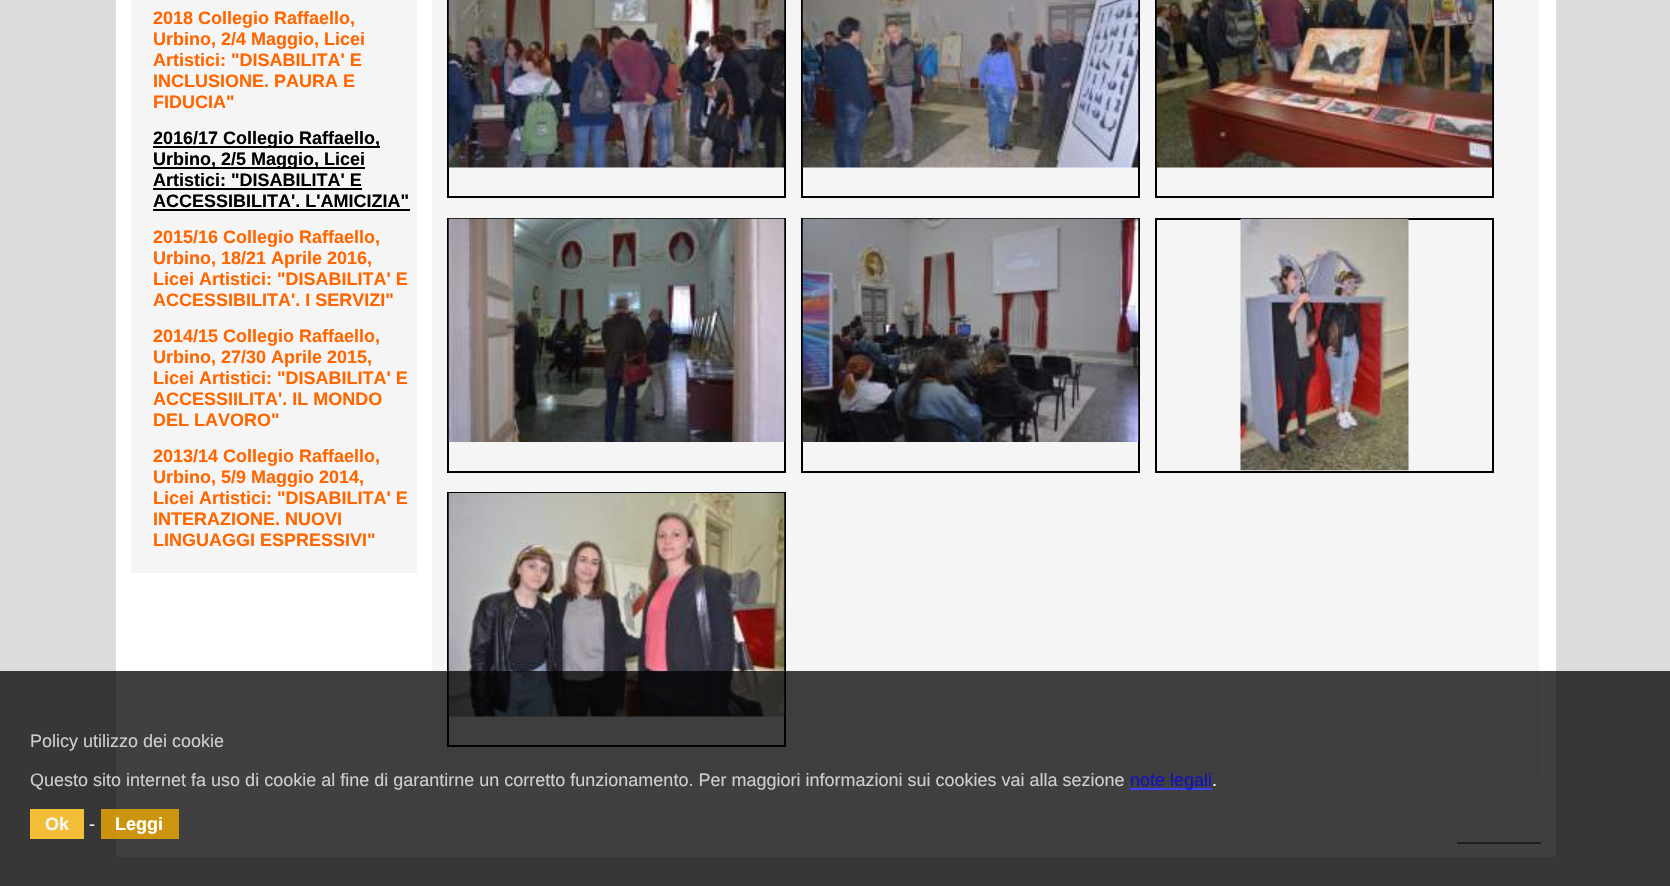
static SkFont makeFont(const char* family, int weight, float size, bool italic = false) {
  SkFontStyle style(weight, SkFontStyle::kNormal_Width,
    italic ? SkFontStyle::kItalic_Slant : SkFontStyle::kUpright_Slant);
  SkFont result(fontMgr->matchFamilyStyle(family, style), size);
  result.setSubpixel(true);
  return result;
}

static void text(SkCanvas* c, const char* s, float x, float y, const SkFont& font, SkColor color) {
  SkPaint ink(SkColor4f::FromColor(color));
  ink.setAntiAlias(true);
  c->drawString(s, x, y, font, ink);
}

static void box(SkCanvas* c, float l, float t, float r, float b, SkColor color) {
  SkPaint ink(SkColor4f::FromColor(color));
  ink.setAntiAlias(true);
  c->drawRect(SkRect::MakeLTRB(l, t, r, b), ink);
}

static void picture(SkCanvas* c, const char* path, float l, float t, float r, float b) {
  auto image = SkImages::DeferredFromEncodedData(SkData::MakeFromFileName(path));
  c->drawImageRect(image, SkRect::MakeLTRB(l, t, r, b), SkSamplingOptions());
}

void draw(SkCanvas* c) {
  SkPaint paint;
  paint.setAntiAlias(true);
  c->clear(0xffdcdcdc);
  box(c, 116, 0, 1556, 857, 0xffffffff);
  box(c, 131, 0, 417, 573, 0xfff5f5f5);
  SkFont face1 = makeFont("Liberation Sans", 700, 18);
  text(c, "2018 Collegio Raffaello,", 153, 24, face1, 0xffff6600);
  text(c, "Urbino, 2/4 Maggio, Licei", 153, 45, face1, 0xffff6600);
  text(c, "Artistici: \"DISABILITA' E", 153, 66, face1, 0xffff6600);
  text(c, "INCLUSIONE. PAURA E", 153, 87, face1, 0xffff6600);
  text(c, "FIDUCIA\"", 153, 108, face1, 0xffff6600);
  box(c, 153, 146, 380, 148, 0xff000000);
  text(c, "2016/17 Collegio Raffaello,", 153, 144, face1, 0xff000000);
  box(c, 153, 167, 365, 169, 0xff000000);
  text(c, "Urbino, 2/5 Maggio, Licei", 153, 165, face1, 0xff000000);
  text(c, "Artistici: \"DISABILITA' E", 153, 186, face1, 0xff000000);
  box(c, 153, 188, 362, 190, 0xff000000);
  text(c, "ACCESSIBILITA'. L'AMICIZIA\"", 153, 207, face1, 0xff000000);
  box(c, 153, 209, 410, 211, 0xff000000);
  text(c, "2015/16 Collegio Raffaello,", 153, 243, face1, 0xffff6600);
  text(c, "Urbino, 18/21 Aprile 2016,", 153, 264, face1, 0xffff6600);
  text(c, "Licei Artistici: \"DISABILITA' E", 153, 285, face1, 0xffff6600);
  text(c, "ACCESSIBILITA'. I SERVIZI\"", 153, 306, face1, 0xffff6600);
  text(c, "2014/15 Collegio Raffaello,", 153, 342, face1, 0xffff6600);
  text(c, "Urbino, 27/30 Aprile 2015,", 153, 363, face1, 0xffff6600);
  text(c, "Licei Artistici: \"DISABILITA' E", 153, 384, face1, 0xffff6600);
  text(c, "ACCESSIILITA'. IL MONDO", 153, 405, face1, 0xffff6600);
  text(c, "DEL LAVORO\"", 153, 426, face1, 0xffff6600);
  text(c, "2013/14 Collegio Raffaello,", 153, 462, face1, 0xffff6600);
  text(c, "Urbino, 5/9 Maggio 2014,", 153, 483, face1, 0xffff6600);
  text(c, "Licei Artistici: \"DISABILITA' E", 153, 504, face1, 0xffff6600);
  text(c, "INTERAZIONE. NUOVI", 153, 525, face1, 0xffff6600);
  text(c, "LINGUAGGI ESPRESSIVI\"", 153, 546, face1, 0xffff6600);
  box(c, 432, 0, 1539, 782, 0xfff5f5f5);
  paint.setStyle(SkPaint::kStroke_Style);
  paint.setStrokeWidth(2);
  paint.setColor(0xff000000);
  c->drawRect(SkRect::MakeLTRB(448, -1, 785, 197), paint);
  picture(c, "img_01.png", 448, 0, 785, 168);
  c->drawRect(SkRect::MakeLTRB(802, -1, 1139, 197), paint);
  picture(c, "img_02.png", 802, 0, 1139, 168);
  c->drawRect(SkRect::MakeLTRB(1156, -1, 1493, 197), paint);
  picture(c, "img_03.png", 1156, 0, 1493, 168);
  c->drawRect(SkRect::MakeLTRB(448, 219, 785, 472), paint);
  picture(c, "img_04.png", 448, 218, 785, 442);
  c->drawRect(SkRect::MakeLTRB(802, 219, 1139, 472), paint);
  picture(c, "img_05.png", 802, 218, 1139, 442);
  c->drawRect(SkRect::MakeLTRB(1156, 219, 1493, 472), paint);
  picture(c, "img_06.png", 1240, 218, 1409, 471);
  c->drawRect(SkRect::MakeLTRB(448, 493, 785, 746), paint);
  picture(c, "img_07.png", 448, 493, 785, 717);
  box(c, 1457, 842, 1541, 844, 0xff808080);
  box(c, 0, 671, 1670, 886, 0xbf000000);
  SkFont face2 = makeFont("Liberation Sans", 400, 18);
  text(c, "Policy utilizzo dei cookie", 30, 747, face2, 0xffcecece);
  text(c, "Questo sito internet fa uso di cookie al fine di garantirne un corretto funzionamento. Per maggiori informazioni sui cookies vai alla sezione", 30, 786, face2, 0xffcecece);
  box(c, 1130, 788, 1212, 790, 0xff4040f2);
  text(c, "note legali", 1130, 786, face2, 0xff1010c3);
  text(c, ".", 1212, 786, face2, 0xffffffff);
  box(c, 30, 809, 84, 839, 0xfff2bd37);
  text(c, "Ok", 45, 830, face1, 0xfff6f6f6);
  text(c, "-", 89, 830, face2, 0xfff6f6f6);
  box(c, 101, 809, 179, 839, 0xbff9b200);
  text(c, "Leggi", 115, 830, face1, 0xffffffff);
}
